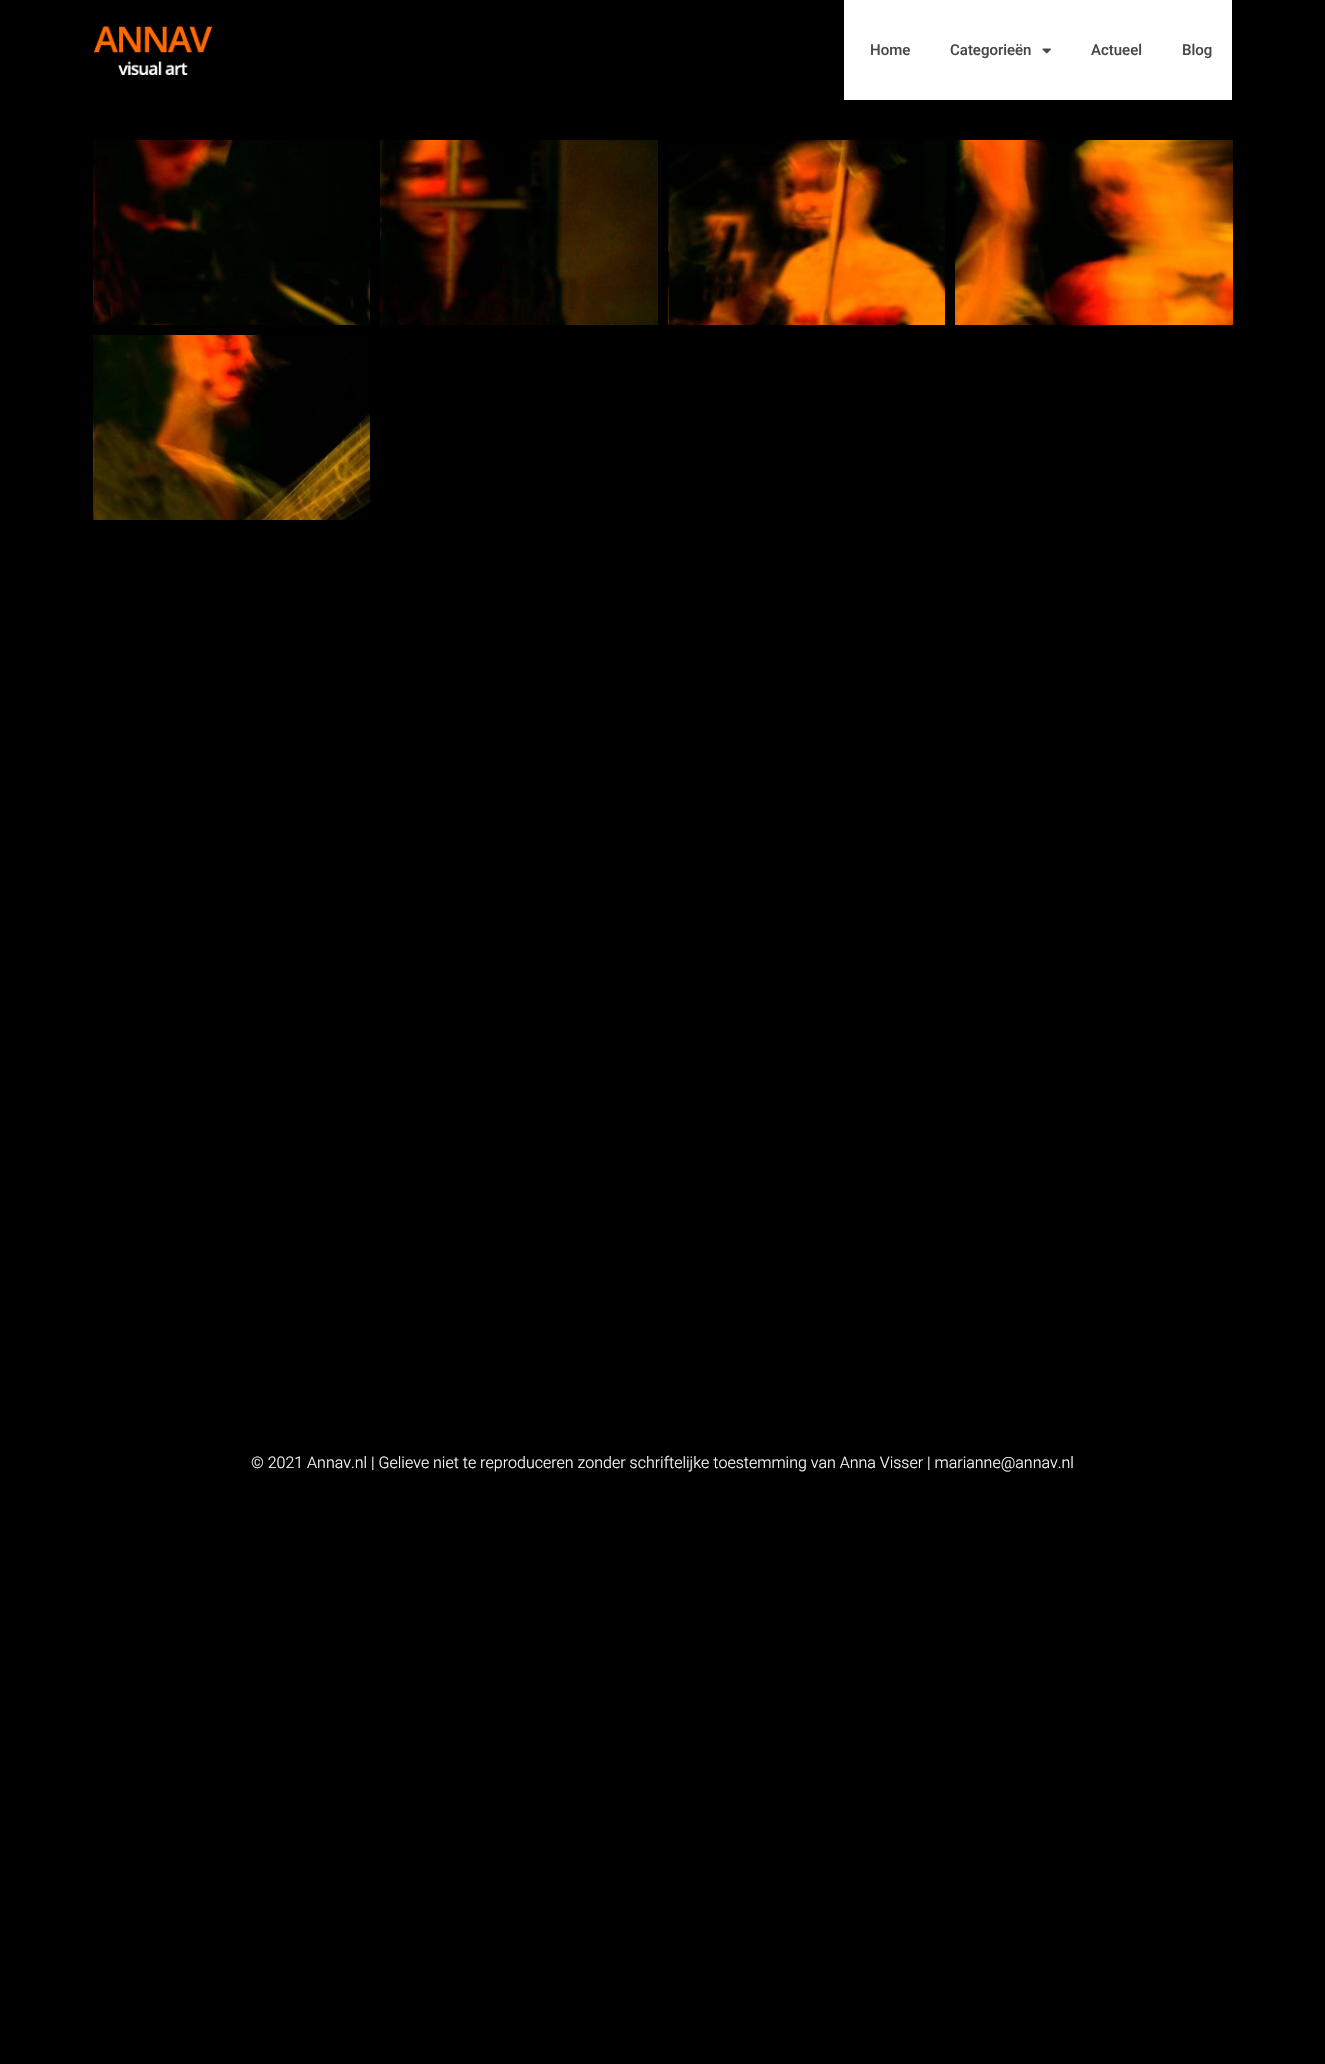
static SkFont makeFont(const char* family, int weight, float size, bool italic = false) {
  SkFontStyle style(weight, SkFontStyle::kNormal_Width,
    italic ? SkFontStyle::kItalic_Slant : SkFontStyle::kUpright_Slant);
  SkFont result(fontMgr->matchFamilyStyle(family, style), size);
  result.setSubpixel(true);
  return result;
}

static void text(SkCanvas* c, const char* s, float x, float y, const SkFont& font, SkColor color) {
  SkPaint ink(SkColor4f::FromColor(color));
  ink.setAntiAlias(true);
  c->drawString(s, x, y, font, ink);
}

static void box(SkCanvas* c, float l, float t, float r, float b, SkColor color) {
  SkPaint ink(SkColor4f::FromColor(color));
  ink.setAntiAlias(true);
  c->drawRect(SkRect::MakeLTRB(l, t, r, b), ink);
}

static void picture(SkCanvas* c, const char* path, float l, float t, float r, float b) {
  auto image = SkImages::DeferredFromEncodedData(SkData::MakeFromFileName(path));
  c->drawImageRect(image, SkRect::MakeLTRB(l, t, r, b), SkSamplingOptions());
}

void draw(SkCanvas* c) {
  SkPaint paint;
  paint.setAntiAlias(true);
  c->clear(0xff000000);
  picture(c, "img_01.png", 94, 26, 213, 75);
  box(c, 844, 0, 1232, 100, 0xffffffff);
  SkFont face1 = makeFont("Roboto", 500, 15);
  text(c, "Home", 870, 55, face1, 0xff474747);
  text(c, "Categorieën", 950, 55, face1, 0xff474747);
  picture(c, "img_02.png", 1042, 48, 1051, 54);
  text(c, "Actueel", 1091, 55, face1, 0xff474747);
  text(c, "Blog", 1182, 55, face1, 0xff474747);
  picture(c, "img_03.png", 93, 140, 370, 325);
  picture(c, "img_04.png", 380, 140, 658, 325);
  picture(c, "img_05.png", 668, 140, 945, 325);
  picture(c, "img_06.png", 955, 140, 1233, 325);
  picture(c, "img_07.png", 93, 335, 370, 520);
  SkFont face2 = makeFont("Roboto", 300, 16);
  text(c, "© 2021 Annav.nl | Gelieve niet te reproduceren zonder schriftelijke toestemming van Anna Visser | marianne@annav.nl", 251, 1468, face2, 0xffffffff);
}
